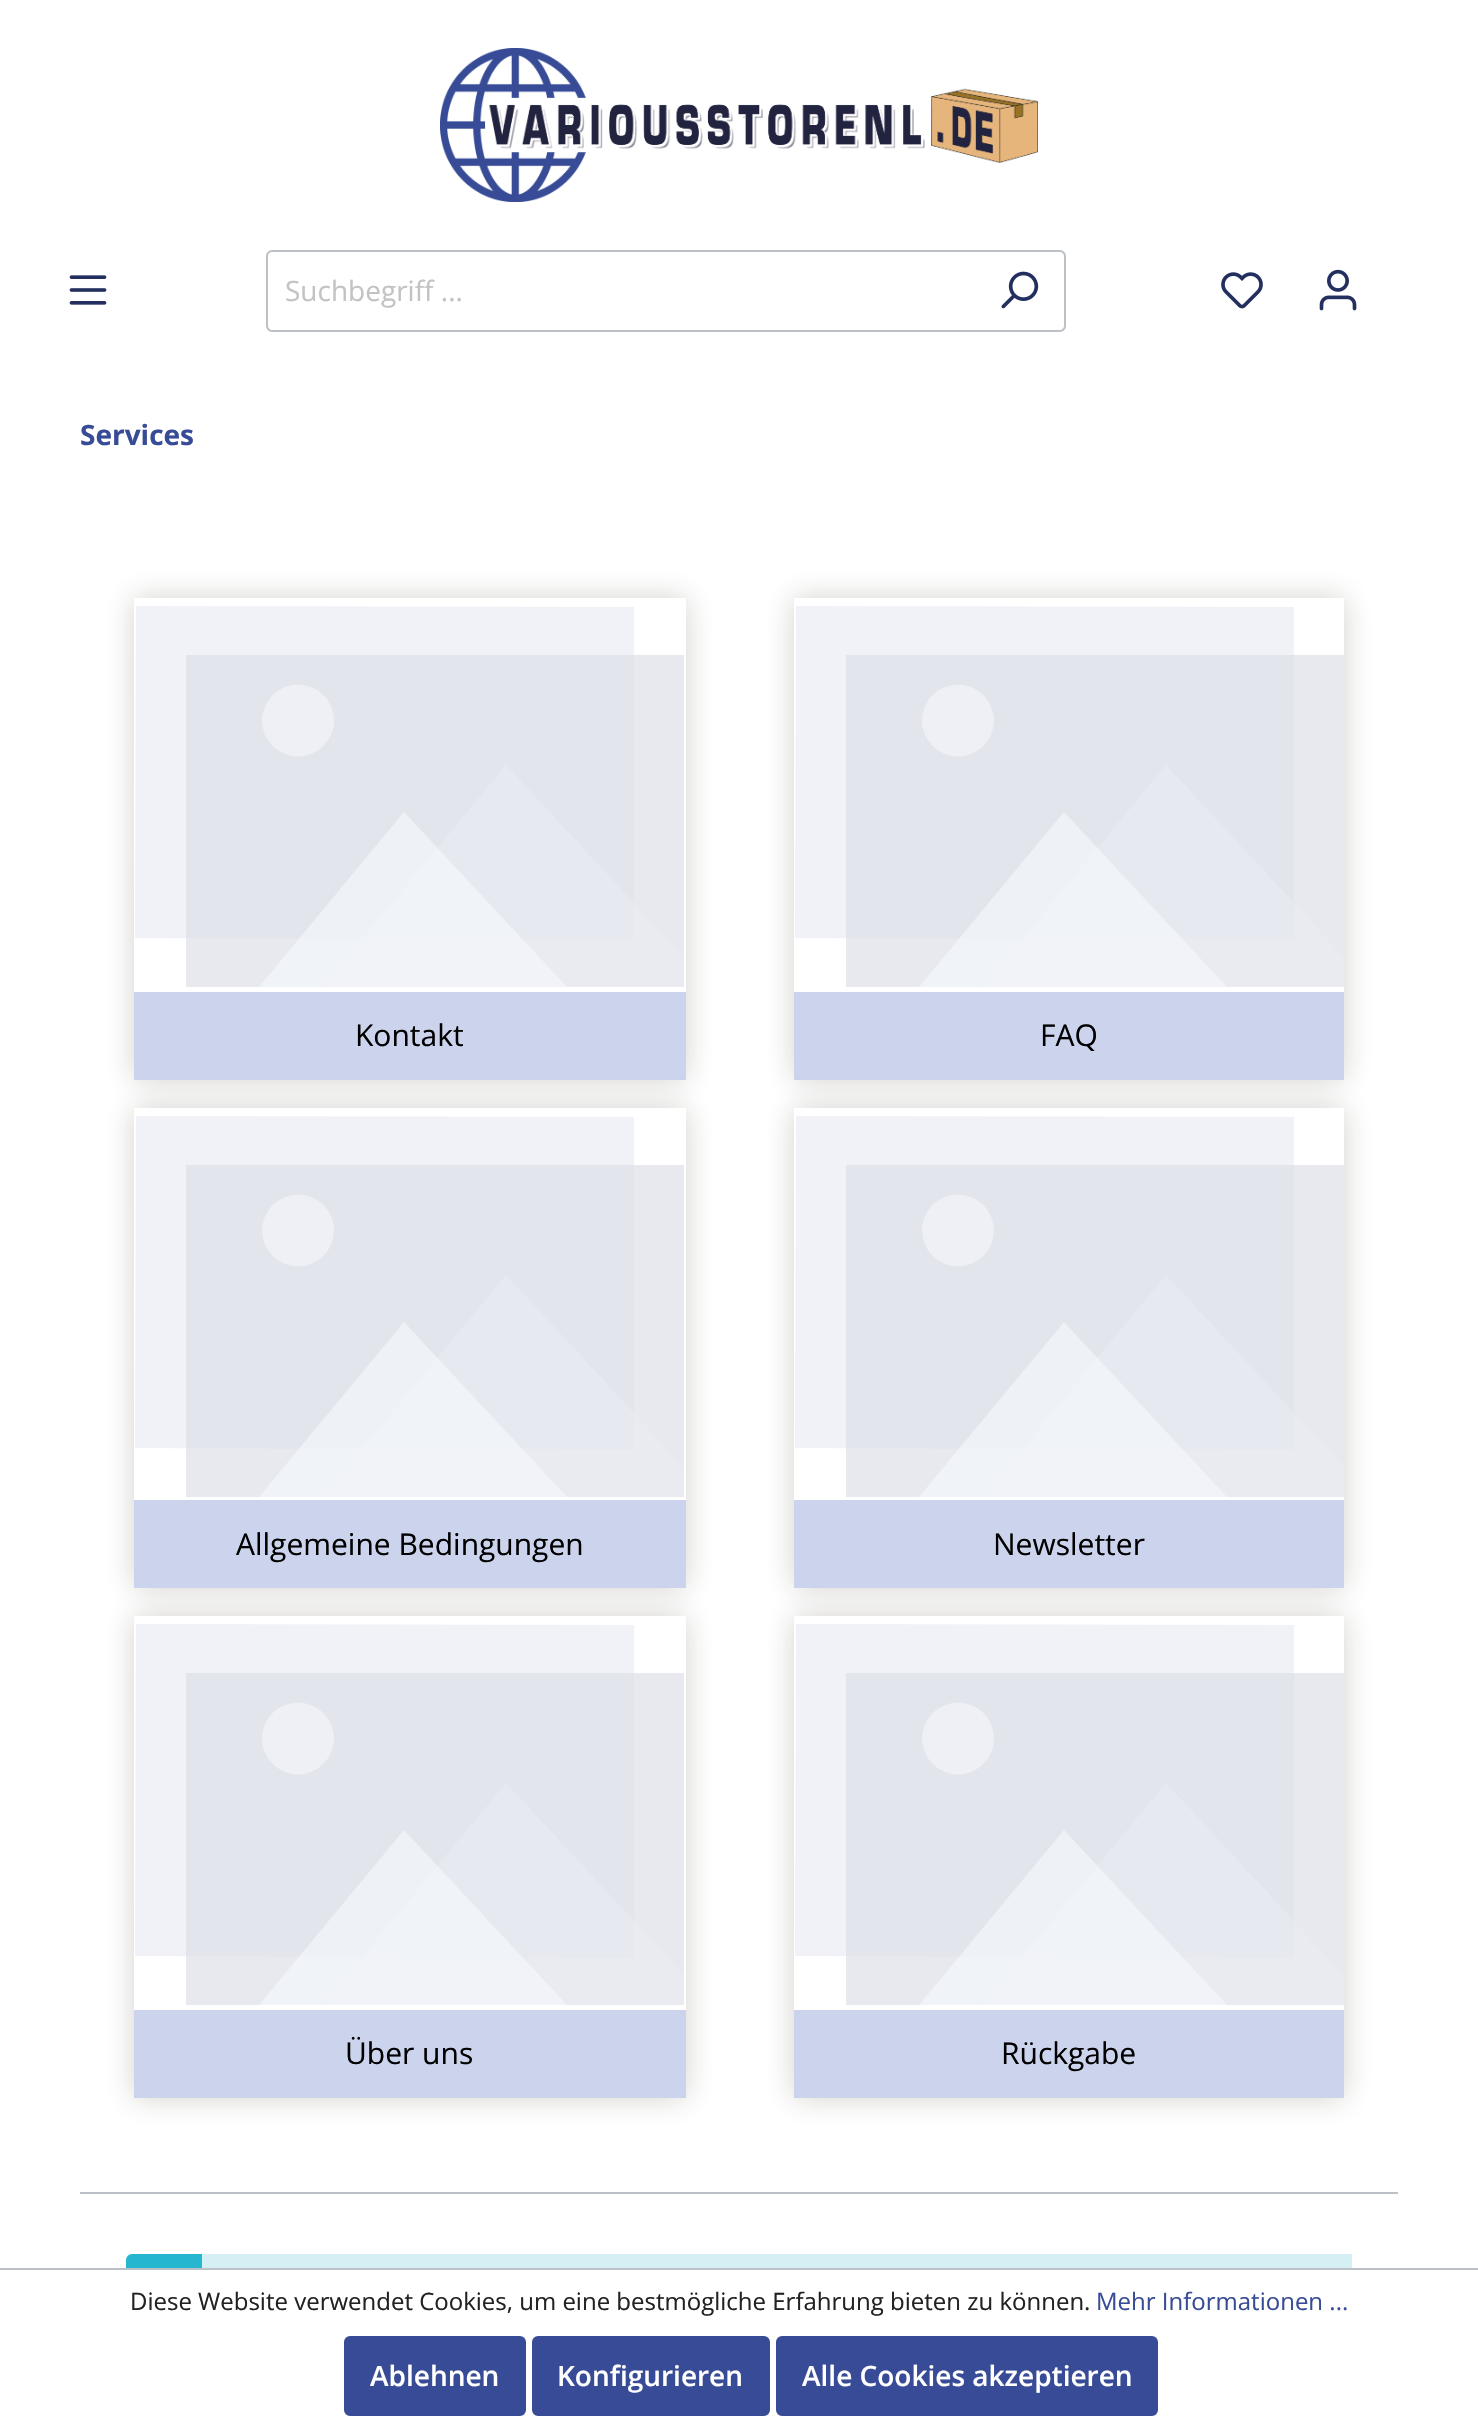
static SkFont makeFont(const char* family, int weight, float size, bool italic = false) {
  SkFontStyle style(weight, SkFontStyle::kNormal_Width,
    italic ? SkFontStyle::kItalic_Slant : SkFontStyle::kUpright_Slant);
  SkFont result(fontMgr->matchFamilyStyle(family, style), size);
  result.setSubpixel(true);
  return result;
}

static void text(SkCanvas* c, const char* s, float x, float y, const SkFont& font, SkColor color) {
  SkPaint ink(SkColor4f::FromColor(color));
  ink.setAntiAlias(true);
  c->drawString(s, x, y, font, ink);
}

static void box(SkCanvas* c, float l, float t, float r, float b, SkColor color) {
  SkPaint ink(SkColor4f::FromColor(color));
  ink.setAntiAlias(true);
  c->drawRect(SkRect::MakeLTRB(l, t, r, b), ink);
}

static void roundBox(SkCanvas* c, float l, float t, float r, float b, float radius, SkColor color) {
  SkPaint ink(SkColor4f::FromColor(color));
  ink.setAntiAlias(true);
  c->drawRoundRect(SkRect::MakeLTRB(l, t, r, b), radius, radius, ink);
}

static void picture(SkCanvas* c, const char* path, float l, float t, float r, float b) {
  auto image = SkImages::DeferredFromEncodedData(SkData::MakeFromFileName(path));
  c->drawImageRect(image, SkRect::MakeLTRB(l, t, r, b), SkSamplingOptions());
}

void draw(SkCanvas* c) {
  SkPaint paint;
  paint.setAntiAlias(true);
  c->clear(0xffffffff);
  picture(c, "img_01.png", 440, 48, 1038, 202);
  picture(c, "img_02.png", 69, 275, 107, 305);
  paint.setColor(0xffbcc1c7);
  c->drawPath(SkPathBuilder(SkPathFillType::kEvenOdd).moveTo(272, 250).lineTo(974, 250).lineTo(974, 332).lineTo(272, 332).cubicTo(269, 332, 266, 329, 266, 326).lineTo(266, 256).cubicTo(266, 253, 269, 250, 272, 250).close().moveTo(272, 252).lineTo(974, 252).lineTo(974, 330).lineTo(272, 330).cubicTo(270, 330, 268, 328, 268, 326).lineTo(268, 256).cubicTo(268, 254, 270, 252, 272, 252).close().detach(), paint);
  SkFont face1 = makeFont("Open Sans", 400, 28);
  text(c, "Suchbegriff ...", 285, 301, face1, 0xffc3c3c3);
  paint.setColor(0xffffffff);
  c->drawPath(SkPathBuilder().moveTo(972, 250).lineTo(1060, 250).cubicTo(1063.5f, 250, 1066, 252.5f, 1066, 256).lineTo(1066, 326).cubicTo(1066, 329.5f, 1063.5f, 332, 1060, 332).lineTo(972, 332).close().detach(), paint);
  paint.setColor(0xffbcc1c7);
  c->drawPath(SkPathBuilder(SkPathFillType::kEvenOdd).moveTo(972, 250).lineTo(1060, 250).cubicTo(1063, 250, 1066, 253, 1066, 256).lineTo(1066, 326).cubicTo(1066, 329, 1063, 332, 1060, 332).lineTo(972, 332).close().moveTo(972, 252).lineTo(1060, 252).cubicTo(1062, 252, 1064, 254, 1064, 256).lineTo(1064, 326).cubicTo(1064, 328, 1062, 330, 1060, 330).lineTo(972, 330).close().detach(), paint);
  picture(c, "img_03.png", 1001, 271, 1039, 309);
  picture(c, "img_04.png", 1221, 272, 1263, 309);
  picture(c, "img_05.png", 1319, 269, 1357, 311);
  SkFont face2 = makeFont("Open Sans", 700, 28);
  text(c, "Services", 80, 445, face2, 0xff384b96);
  box(c, 80, 2192, 1398, 2194, 0xffbcc1c7);
  c->save();
  c->clipPath(SkPathBuilder(SkPathFillType::kEvenOdd).moveTo(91, 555).lineTo(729, 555).lineTo(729, 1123).lineTo(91, 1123).close().moveTo(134, 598).lineTo(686, 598).lineTo(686, 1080).lineTo(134, 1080).close().detach(), true);
  paint.setColor(0x33211d06);
  paint.setMaskFilter(SkMaskFilter::MakeBlur(kNormal_SkBlurStyle, 14));
  c->drawRect(SkRect::MakeLTRB(134, 598, 686, 1080), paint);
  paint.setMaskFilter(nullptr);
  c->restore();
  paint.setColor(0xfff1f2f7);
  c->drawPath(SkPathBuilder().moveTo(135, 938).lineTo(136, 606).lineTo(634, 607).lineTo(634, 940).close().detach(), paint);
  box(c, 186, 655, 684, 987, 0xa6dadde5);
  paint.setColor(0xa6e9ebf2);
  c->drawPath(SkPathBuilder(SkPathFillType::kEvenOdd).moveTo(322, 987).lineTo(684, 987).lineTo(684, 957).lineTo(506, 765).close().detach(), paint);
  paint.setColor(0xffeef0f6);
  c->drawCircle(298, 720.5f, 36, paint);
  paint.setColor(0xa6f5f7fc);
  c->drawPath(SkPathBuilder(SkPathFillType::kEvenOdd).moveTo(404, 812).lineTo(259, 987).lineTo(567, 987).close().detach(), paint);
  box(c, 134, 992, 686, 1080, 0xffccd3ec);
  SkFont face3 = makeFont("Open Sans", 400, 30);
  text(c, "Kontakt", 355, 1046, face3, 0xff010101);
  c->save();
  c->clipPath(SkPathBuilder(SkPathFillType::kEvenOdd).moveTo(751, 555).lineTo(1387, 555).lineTo(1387, 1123).lineTo(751, 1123).close().moveTo(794, 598).lineTo(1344, 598).lineTo(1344, 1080).lineTo(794, 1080).close().detach(), true);
  paint.setColor(0x33211d06);
  paint.setMaskFilter(SkMaskFilter::MakeBlur(kNormal_SkBlurStyle, 14));
  c->drawRect(SkRect::MakeLTRB(794, 598, 1344, 1080), paint);
  paint.setMaskFilter(nullptr);
  c->restore();
  paint.setColor(0xfff1f2f7);
  c->drawPath(SkPathBuilder().moveTo(795, 938).lineTo(796, 606).lineTo(1294, 607).lineTo(1294, 940).close().detach(), paint);
  box(c, 846, 655, 1344, 987, 0xa6dadde5);
  paint.setColor(0xa6e9ebf2);
  c->drawPath(SkPathBuilder(SkPathFillType::kEvenOdd).moveTo(982, 987).lineTo(1344, 987).lineTo(1344, 957).lineTo(1166, 765).close().detach(), paint);
  paint.setColor(0xffeef0f6);
  c->drawCircle(958, 720.5f, 36, paint);
  paint.setColor(0xa6f5f7fc);
  c->drawPath(SkPathBuilder(SkPathFillType::kEvenOdd).moveTo(1064, 812).lineTo(919, 987).lineTo(1227, 987).close().detach(), paint);
  box(c, 794, 992, 1344, 1080, 0xffccd3ec);
  text(c, "FAQ", 1040, 1046, face3, 0xff010101);
  c->save();
  c->clipPath(SkPathBuilder(SkPathFillType::kEvenOdd).moveTo(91, 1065).lineTo(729, 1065).lineTo(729, 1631).lineTo(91, 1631).close().moveTo(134, 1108).lineTo(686, 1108).lineTo(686, 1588).lineTo(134, 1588).close().detach(), true);
  paint.setColor(0x33211d06);
  paint.setMaskFilter(SkMaskFilter::MakeBlur(kNormal_SkBlurStyle, 14));
  c->drawRect(SkRect::MakeLTRB(134, 1108, 686, 1588), paint);
  paint.setMaskFilter(nullptr);
  c->restore();
  paint.setColor(0xfff1f2f7);
  c->drawPath(SkPathBuilder().moveTo(135, 1448).lineTo(136, 1116).lineTo(634, 1117).lineTo(634, 1450).close().detach(), paint);
  box(c, 186, 1165, 684, 1497, 0xa6dadde5);
  paint.setColor(0xa6e9ebf2);
  c->drawPath(SkPathBuilder(SkPathFillType::kEvenOdd).moveTo(322, 1497).lineTo(684, 1497).lineTo(684, 1467).lineTo(506, 1275).close().detach(), paint);
  paint.setColor(0xffeef0f6);
  c->drawCircle(298, 1230.5f, 36, paint);
  paint.setColor(0xa6f5f7fc);
  c->drawPath(SkPathBuilder(SkPathFillType::kEvenOdd).moveTo(404, 1322).lineTo(259, 1497).lineTo(567, 1497).close().detach(), paint);
  box(c, 134, 1500, 686, 1588, 0xffccd3ec);
  text(c, "Allgemeine Bedingungen", 236, 1555, face3, 0xff010101);
  c->save();
  c->clipPath(SkPathBuilder(SkPathFillType::kEvenOdd).moveTo(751, 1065).lineTo(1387, 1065).lineTo(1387, 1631).lineTo(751, 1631).close().moveTo(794, 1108).lineTo(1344, 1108).lineTo(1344, 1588).lineTo(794, 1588).close().detach(), true);
  paint.setColor(0x33211d06);
  paint.setMaskFilter(SkMaskFilter::MakeBlur(kNormal_SkBlurStyle, 14));
  c->drawRect(SkRect::MakeLTRB(794, 1108, 1344, 1588), paint);
  paint.setMaskFilter(nullptr);
  c->restore();
  paint.setColor(0xfff1f2f7);
  c->drawPath(SkPathBuilder().moveTo(795, 1448).lineTo(796, 1116).lineTo(1294, 1117).lineTo(1294, 1450).close().detach(), paint);
  box(c, 846, 1165, 1344, 1497, 0xa6dadde5);
  paint.setColor(0xa6e9ebf2);
  c->drawPath(SkPathBuilder(SkPathFillType::kEvenOdd).moveTo(982, 1497).lineTo(1344, 1497).lineTo(1344, 1467).lineTo(1166, 1275).close().detach(), paint);
  paint.setColor(0xffeef0f6);
  c->drawCircle(958, 1230.5f, 36, paint);
  paint.setColor(0xa6f5f7fc);
  c->drawPath(SkPathBuilder(SkPathFillType::kEvenOdd).moveTo(1064, 1322).lineTo(919, 1497).lineTo(1227, 1497).close().detach(), paint);
  box(c, 794, 1500, 1344, 1588, 0xffccd3ec);
  text(c, "Newsletter", 993, 1555, face3, 0xff010101);
  c->save();
  c->clipPath(SkPathBuilder(SkPathFillType::kEvenOdd).moveTo(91, 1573).lineTo(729, 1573).lineTo(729, 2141).lineTo(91, 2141).close().moveTo(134, 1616).lineTo(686, 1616).lineTo(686, 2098).lineTo(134, 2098).close().detach(), true);
  paint.setColor(0x33211d06);
  paint.setMaskFilter(SkMaskFilter::MakeBlur(kNormal_SkBlurStyle, 14));
  c->drawRect(SkRect::MakeLTRB(134, 1616, 686, 2098), paint);
  paint.setMaskFilter(nullptr);
  c->restore();
  paint.setColor(0xfff1f2f7);
  c->drawPath(SkPathBuilder().moveTo(135, 1956).lineTo(136, 1624).lineTo(634, 1625).lineTo(634, 1958).close().detach(), paint);
  box(c, 186, 1673, 684, 2005, 0xa6dadde5);
  paint.setColor(0xa6e9ebf2);
  c->drawPath(SkPathBuilder(SkPathFillType::kEvenOdd).moveTo(322, 2005).lineTo(684, 2005).lineTo(684, 1975).lineTo(506, 1783).close().detach(), paint);
  paint.setColor(0xffeef0f6);
  c->drawCircle(298, 1738.5f, 36, paint);
  paint.setColor(0xa6f5f7fc);
  c->drawPath(SkPathBuilder(SkPathFillType::kEvenOdd).moveTo(404, 1830).lineTo(259, 2005).lineTo(567, 2005).close().detach(), paint);
  box(c, 134, 2010, 686, 2098, 0xffccd3ec);
  text(c, "Über uns", 345, 2064, face3, 0xff010101);
  c->save();
  c->clipPath(SkPathBuilder(SkPathFillType::kEvenOdd).moveTo(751, 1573).lineTo(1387, 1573).lineTo(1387, 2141).lineTo(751, 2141).close().moveTo(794, 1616).lineTo(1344, 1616).lineTo(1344, 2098).lineTo(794, 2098).close().detach(), true);
  paint.setColor(0x33211d06);
  paint.setMaskFilter(SkMaskFilter::MakeBlur(kNormal_SkBlurStyle, 14));
  c->drawRect(SkRect::MakeLTRB(794, 1616, 1344, 2098), paint);
  paint.setMaskFilter(nullptr);
  c->restore();
  paint.setColor(0xfff1f2f7);
  c->drawPath(SkPathBuilder().moveTo(795, 1956).lineTo(796, 1624).lineTo(1294, 1625).lineTo(1294, 1958).close().detach(), paint);
  box(c, 846, 1673, 1344, 2005, 0xa6dadde5);
  paint.setColor(0xa6e9ebf2);
  c->drawPath(SkPathBuilder(SkPathFillType::kEvenOdd).moveTo(982, 2005).lineTo(1344, 2005).lineTo(1344, 1975).lineTo(1166, 1783).close().detach(), paint);
  paint.setColor(0xffeef0f6);
  c->drawCircle(958, 1738.5f, 36, paint);
  paint.setColor(0xa6f5f7fc);
  c->drawPath(SkPathBuilder(SkPathFillType::kEvenOdd).moveTo(1064, 1830).lineTo(919, 2005).lineTo(1227, 2005).close().detach(), paint);
  box(c, 794, 2010, 1344, 2098, 0xffccd3ec);
  text(c, "Rückgabe", 1001, 2064, face3, 0xff010101);
  roundBox(c, 126, 2254, 1352, 2330, 6, 0xff26b6cf);
  box(c, 202, 2254, 1352, 2268, 0xffd4f0f5);
  box(c, 126, 2270, 1352, 2330, 0xffffffff);
  box(c, 0, 2268, 1478, 2270, 0xffbcc1c7);
  SkFont face4 = makeFont("Open Sans", 400, 24);
  text(c, "Diese Website verwendet Cookies, um eine bestmögliche Erfahrung bieten zu können.", 130, 2310, face4, 0xff222222);
  text(c, "Mehr Informationen ...", 1096, 2310, face4, 0xff384b96);
  paint.setColor(0xff384b96);
  c->drawRoundRect(SkRect::MakeLTRB(345, 2337, 525, 2415), 5, 5, paint);
  paint.setStyle(SkPaint::kStroke_Style);
  paint.setStrokeWidth(2);
  c->drawRoundRect(SkRect::MakeLTRB(345, 2337, 525, 2415), 5, 5, paint);
  SkFont face5 = makeFont("Open Sans", 600, 28);
  text(c, "Ablehnen", 370, 2386, face5, 0xffffffff);
  paint.setStyle(SkPaint::kFill_Style);
  c->drawRoundRect(SkRect::MakeLTRB(533, 2337, 769, 2415), 5, 5, paint);
  paint.setStyle(SkPaint::kStroke_Style);
  c->drawRoundRect(SkRect::MakeLTRB(533, 2337, 769, 2415), 5, 5, paint);
  text(c, "Konfigurieren", 557, 2386, face5, 0xffffffff);
  paint.setStyle(SkPaint::kFill_Style);
  c->drawRoundRect(SkRect::MakeLTRB(777, 2337, 1157, 2415), 5, 5, paint);
  paint.setStyle(SkPaint::kStroke_Style);
  c->drawRoundRect(SkRect::MakeLTRB(777, 2337, 1157, 2415), 5, 5, paint);
  text(c, "Alle Cookies akzeptieren", 802, 2386, face5, 0xffffffff);
}
